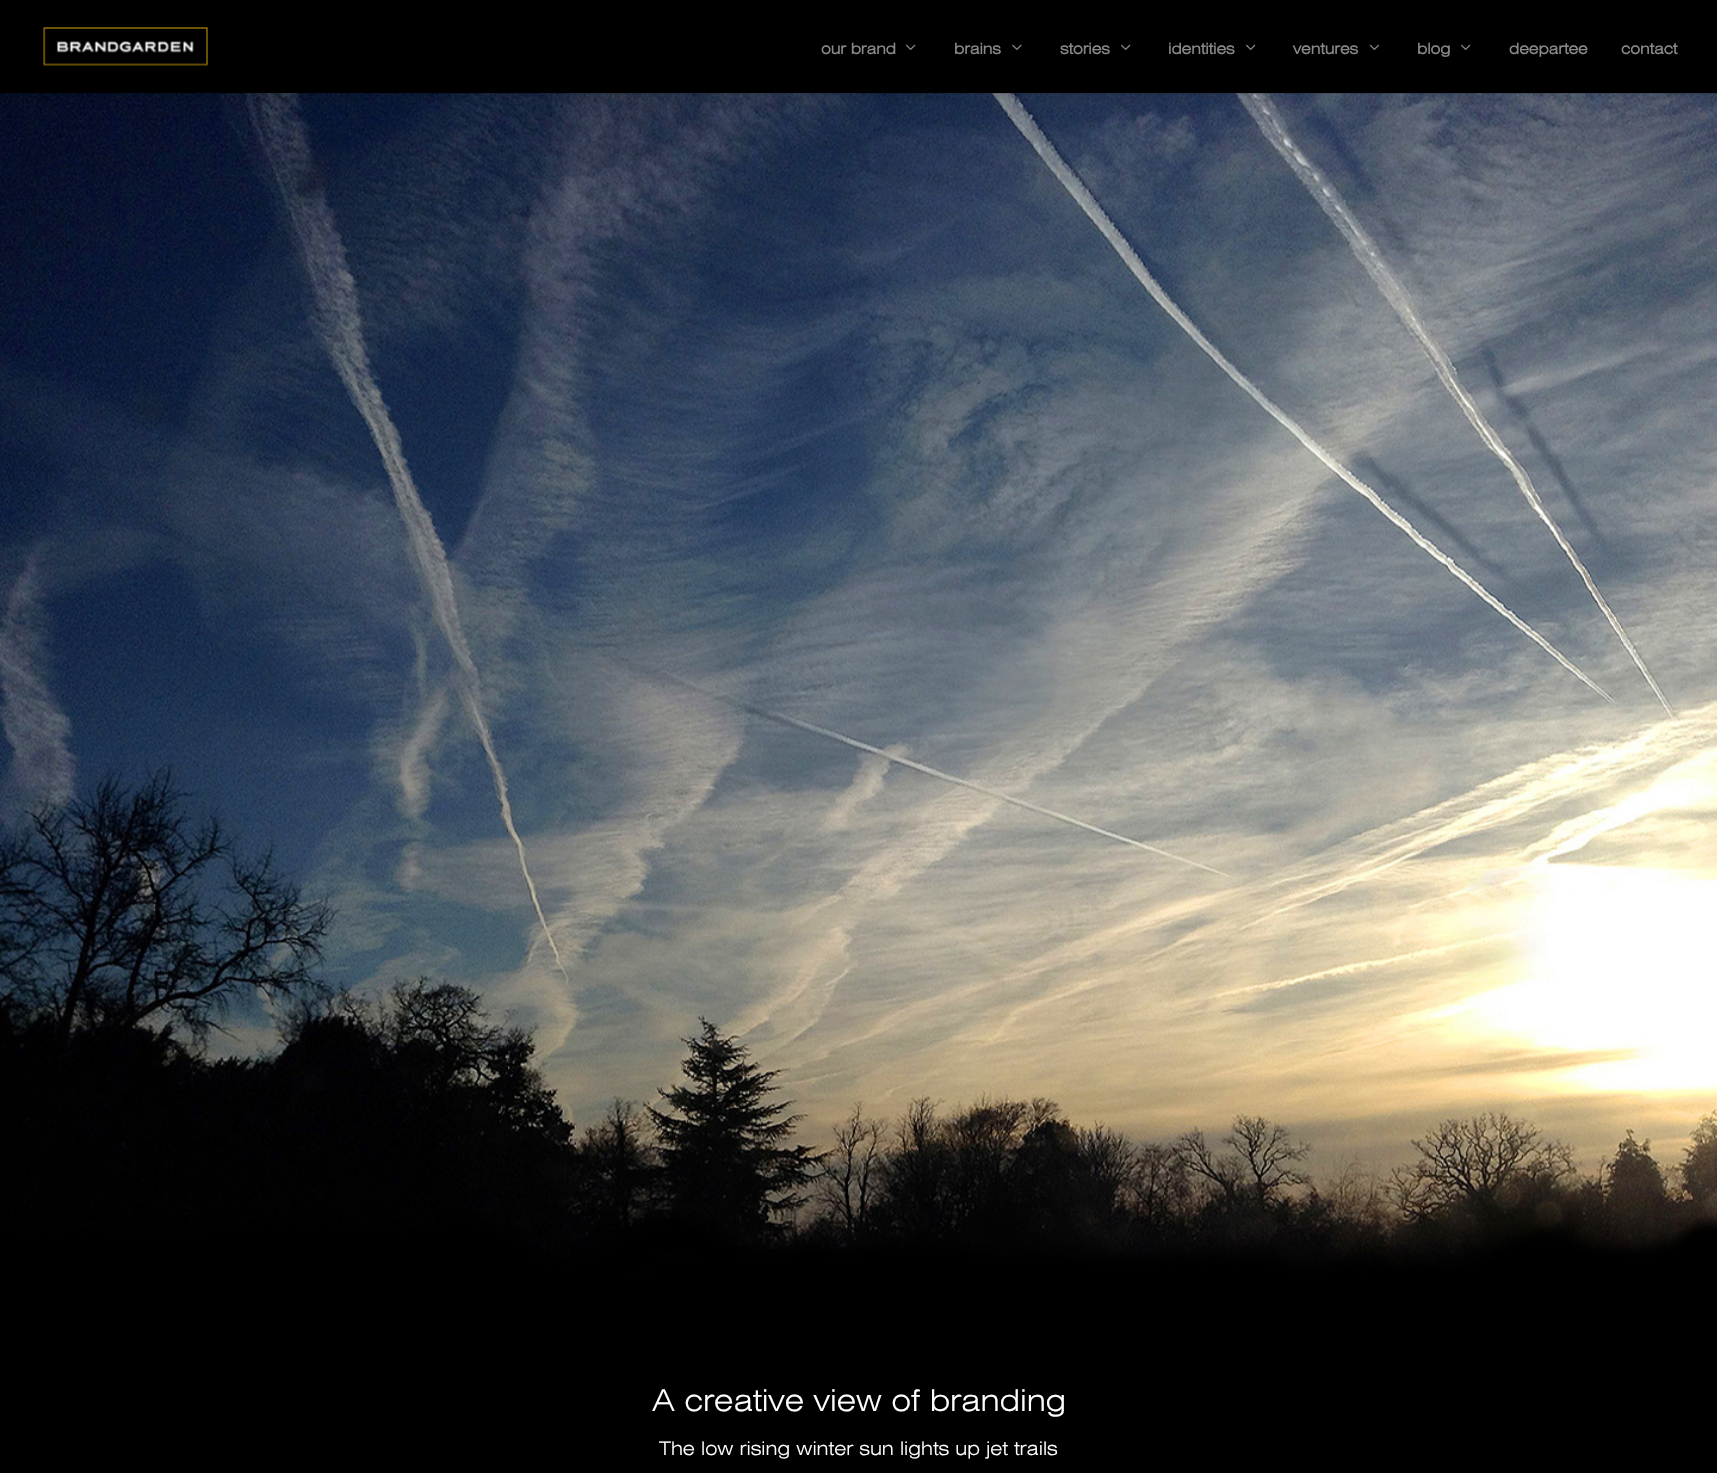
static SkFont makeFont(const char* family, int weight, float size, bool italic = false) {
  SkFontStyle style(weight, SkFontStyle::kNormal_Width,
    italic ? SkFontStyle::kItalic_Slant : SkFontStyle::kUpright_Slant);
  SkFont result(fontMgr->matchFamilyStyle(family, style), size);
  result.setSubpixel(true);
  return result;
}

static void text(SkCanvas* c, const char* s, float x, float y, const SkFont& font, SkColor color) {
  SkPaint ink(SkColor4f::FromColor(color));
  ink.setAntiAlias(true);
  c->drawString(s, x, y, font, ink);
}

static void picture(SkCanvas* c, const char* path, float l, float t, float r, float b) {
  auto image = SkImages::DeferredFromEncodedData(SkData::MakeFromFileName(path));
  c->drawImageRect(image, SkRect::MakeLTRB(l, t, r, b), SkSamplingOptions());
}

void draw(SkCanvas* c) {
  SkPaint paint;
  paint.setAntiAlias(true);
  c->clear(0xff000000);
  picture(c, "img_05.png", 0, 93, 1717, 1276);
  paint.setColor(0x1a000000);
  c->drawPath(SkPathBuilder().moveTo(0, 92).lineTo(0, 94).lineTo(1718, 94).lineTo(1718, 1).lineTo(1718, 92).close().detach(), paint);
  picture(c, "img_01.png", 43, 27, 208, 66);
  SkFont face1 = makeFont("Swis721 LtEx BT", 700, 15);
  text(c, "our brand", 821, 54, face1, 0xff898989);
  picture(c, "img_02.png", 906, 44, 916, 50);
  text(c, "brains", 954, 54, face1, 0xff898989);
  picture(c, "img_03.png", 1012, 44, 1022, 50);
  text(c, "stories", 1060, 54, face1, 0xff898989);
  picture(c, "img_02.png", 1121, 44, 1131, 50);
  text(c, "identities", 1168, 54, face1, 0xff898989);
  picture(c, "img_02.png", 1246, 44, 1256, 50);
  text(c, "ventures", 1293, 54, face1, 0xff898989);
  picture(c, "img_04.png", 1369, 44, 1379, 50);
  text(c, "blog", 1417, 54, face1, 0xff898989);
  picture(c, "img_02.png", 1461, 44, 1471, 50);
  text(c, "deepartee", 1509, 54, face1, 0xff898989);
  text(c, "contact", 1621, 54, face1, 0xff898989);
  SkFont face2 = makeFont("Swis721 LtEx BT", 300, 30);
  text(c, "A creative view of branding", 652, 1411, face2, 0xffffffff);
  SkFont face3 = makeFont("Swis721 LtEx BT", 300, 18.75f);
  text(c, "The low rising winter sun lights up jet trails", 659, 1455, face3, 0xffffffff);
}
